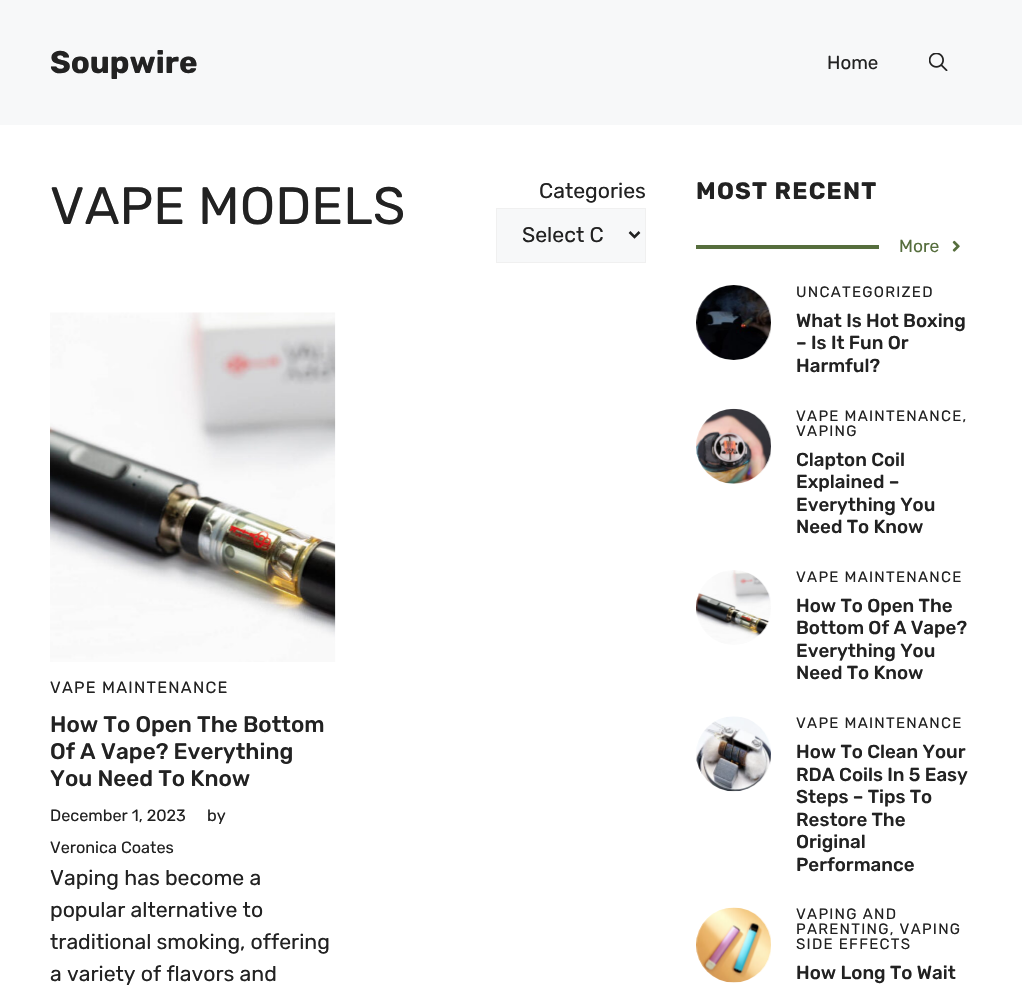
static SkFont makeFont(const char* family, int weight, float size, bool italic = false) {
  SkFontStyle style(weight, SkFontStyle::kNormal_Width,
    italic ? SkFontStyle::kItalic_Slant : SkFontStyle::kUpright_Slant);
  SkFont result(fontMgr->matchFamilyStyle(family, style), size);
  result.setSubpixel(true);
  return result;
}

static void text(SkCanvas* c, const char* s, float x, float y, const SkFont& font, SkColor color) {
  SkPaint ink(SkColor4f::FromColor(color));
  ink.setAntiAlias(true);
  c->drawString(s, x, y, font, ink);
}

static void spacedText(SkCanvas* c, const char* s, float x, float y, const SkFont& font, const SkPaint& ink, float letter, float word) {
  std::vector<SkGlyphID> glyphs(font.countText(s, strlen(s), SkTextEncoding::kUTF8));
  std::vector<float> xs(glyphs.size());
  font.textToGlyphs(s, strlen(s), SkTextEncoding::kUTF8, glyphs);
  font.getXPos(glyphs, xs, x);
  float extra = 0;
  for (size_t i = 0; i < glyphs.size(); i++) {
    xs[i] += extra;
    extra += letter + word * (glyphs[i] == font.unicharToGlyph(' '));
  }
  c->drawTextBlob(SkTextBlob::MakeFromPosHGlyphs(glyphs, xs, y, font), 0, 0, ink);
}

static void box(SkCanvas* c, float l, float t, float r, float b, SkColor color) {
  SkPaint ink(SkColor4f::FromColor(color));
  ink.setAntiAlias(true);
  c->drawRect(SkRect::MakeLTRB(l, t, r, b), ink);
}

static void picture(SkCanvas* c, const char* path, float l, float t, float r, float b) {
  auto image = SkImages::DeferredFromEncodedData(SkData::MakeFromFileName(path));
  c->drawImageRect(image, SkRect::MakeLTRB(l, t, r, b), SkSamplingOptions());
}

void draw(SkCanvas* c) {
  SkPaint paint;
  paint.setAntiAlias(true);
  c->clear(0xffffffff);
  box(c, 0, 0, 1022, 125, 0xfff7f8f9);
  SkFont face1 = makeFont("Rubik", 700, 31.25f);
  text(c, "Soupwire", 50, 73, face1, 0xff222222);
  SkFont face2 = makeFont("Rubik", 400, 18.75f);
  text(c, "Home", 827, 69, face2, 0xff222222);
  picture(c, "img_01.png", 929, 53, 948, 71);
  SkFont face3 = makeFont("Rubik", 400, 52.5f);
  text(c, "VAPE MODELS", 50, 224, face3, 0xff222222);
  SkFont face4 = makeFont("Rubik", 400, 21.25f);
  text(c, "Categories", 539, 198, face4, 0xff222222);
  paint.setColor(0xfff7f8f9);
  c->drawRect(SkRect::MakeLTRB(496.5f, 208.5f, 645.5f, 262.5f), paint);
  paint.setStyle(SkPaint::kStroke_Style);
  paint.setStrokeWidth(1);
  paint.setColor(0xfff0f0f0);
  c->drawRect(SkRect::MakeLTRB(496.5f, 208.5f, 645.5f, 262.5f), paint);
  paint.setStrokeWidth(2.5f);
  paint.setColor(0xff222222);
  c->drawPath(SkPathBuilder().moveTo(629.5f, 232).lineTo(634.5f, 237).lineTo(639.5f, 232).detach(), paint);
  text(c, "Select C", 522, 242, face4, 0xff222222);
  picture(c, "img_02.png", 50, 312, 336, 662);
  SkFont face5 = makeFont("Rubik", 400, 16.25f);
  paint.setStyle(SkPaint::kFill_Style);
  spacedText(c, "VAPE MAINTENANCE", 50, 693, face5, paint, 1.25f, 0);
  SkFont face6 = makeFont("Rubik", 500, 22.5f);
  text(c, "How To Open The Bottom", 50, 732, face6, 0xff222222);
  text(c, "Of A Vape? Everything", 50, 759, face6, 0xff222222);
  text(c, "You Need To Know", 50, 786, face6, 0xff222222);
  text(c, "December 1, 2023", 50, 821, face5, 0xff222222);
  text(c, "by", 207, 821, face5, 0xff222222);
  text(c, "Veronica Coates", 50, 853, face5, 0xff222222);
  text(c, "Vaping has become a", 50, 885, face4, 0xff222222);
  text(c, "popular alternative to", 50, 917, face4, 0xff222222);
  text(c, "traditional smoking, offering", 50, 949, face4, 0xff222222);
  text(c, "a variety of flavors and", 50, 981, face4, 0xff222222);
  SkFont face7 = makeFont("Rubik", 700, 23.75f);
  spacedText(c, "MOST RECENT", 696, 199, face7, paint, 1.25f, 0);
  box(c, 696, 245, 879, 249, 0xff566e3d);
  SkFont face8 = makeFont("Rubik", 400, 17.5f);
  text(c, "More", 899, 252, face8, 0xff566e3d);
  picture(c, "img_03.png", 952, 240, 960, 252);
  picture(c, "img_04.png", 696, 285, 771, 360);
  SkFont face9 = makeFont("Rubik", 400, 15);
  spacedText(c, "UNCATEGORIZED", 796, 297, face9, paint, 1.25f, 0);
  SkFont face10 = makeFont("Rubik", 500, 18.75f);
  text(c, "What Is Hot Boxing", 796, 327, face10, 0xff222222);
  text(c, "– Is It Fun Or", 796, 349, face10, 0xff222222);
  text(c, "Harmful?", 796, 372, face10, 0xff222222);
  picture(c, "img_05.png", 696, 408, 771, 484);
  spacedText(c, "VAPE MAINTENANCE,", 796, 421, face9, paint, 1.25f, 0);
  spacedText(c, "VAPING", 796, 436, face9, paint, 1.25f, 0);
  text(c, "Clapton Coil", 796, 466, face10, 0xff222222);
  text(c, "Explained –", 796, 488, face10, 0xff222222);
  text(c, "Everything You", 796, 511, face10, 0xff222222);
  text(c, "Need To Know", 796, 533, face10, 0xff222222);
  picture(c, "img_06.png", 696, 570, 771, 645);
  spacedText(c, "VAPE MAINTENANCE", 796, 582, face9, paint, 1.25f, 0);
  text(c, "How To Open The", 796, 612, face10, 0xff222222);
  text(c, "Bottom Of A Vape?", 796, 634, face10, 0xff222222);
  text(c, "Everything You", 796, 657, face10, 0xff222222);
  text(c, "Need To Know", 796, 679, face10, 0xff222222);
  picture(c, "img_07.png", 696, 716, 771, 792);
  spacedText(c, "VAPE MAINTENANCE", 796, 728, face9, paint, 1.25f, 0);
  text(c, "How To Clean Your", 796, 758, face10, 0xff222222);
  text(c, "RDA Coils In 5 Easy", 796, 781, face10, 0xff222222);
  text(c, "Steps – Tips To", 796, 803, face10, 0xff222222);
  text(c, "Restore The", 796, 826, face10, 0xff222222);
  text(c, "Original", 796, 848, face10, 0xff222222);
  text(c, "Performance", 796, 871, face10, 0xff222222);
  picture(c, "img_08.png", 696, 907, 771, 983);
  spacedText(c, "VAPING AND", 796, 919, face9, paint, 1.25f, 0);
  spacedText(c, "PARENTING, VAPING", 796, 934, face9, paint, 1.25f, 0);
  spacedText(c, "SIDE EFFECTS", 796, 949, face9, paint, 1.25f, 0);
  text(c, "How Long To Wait", 796, 979, face10, 0xff222222);
}
